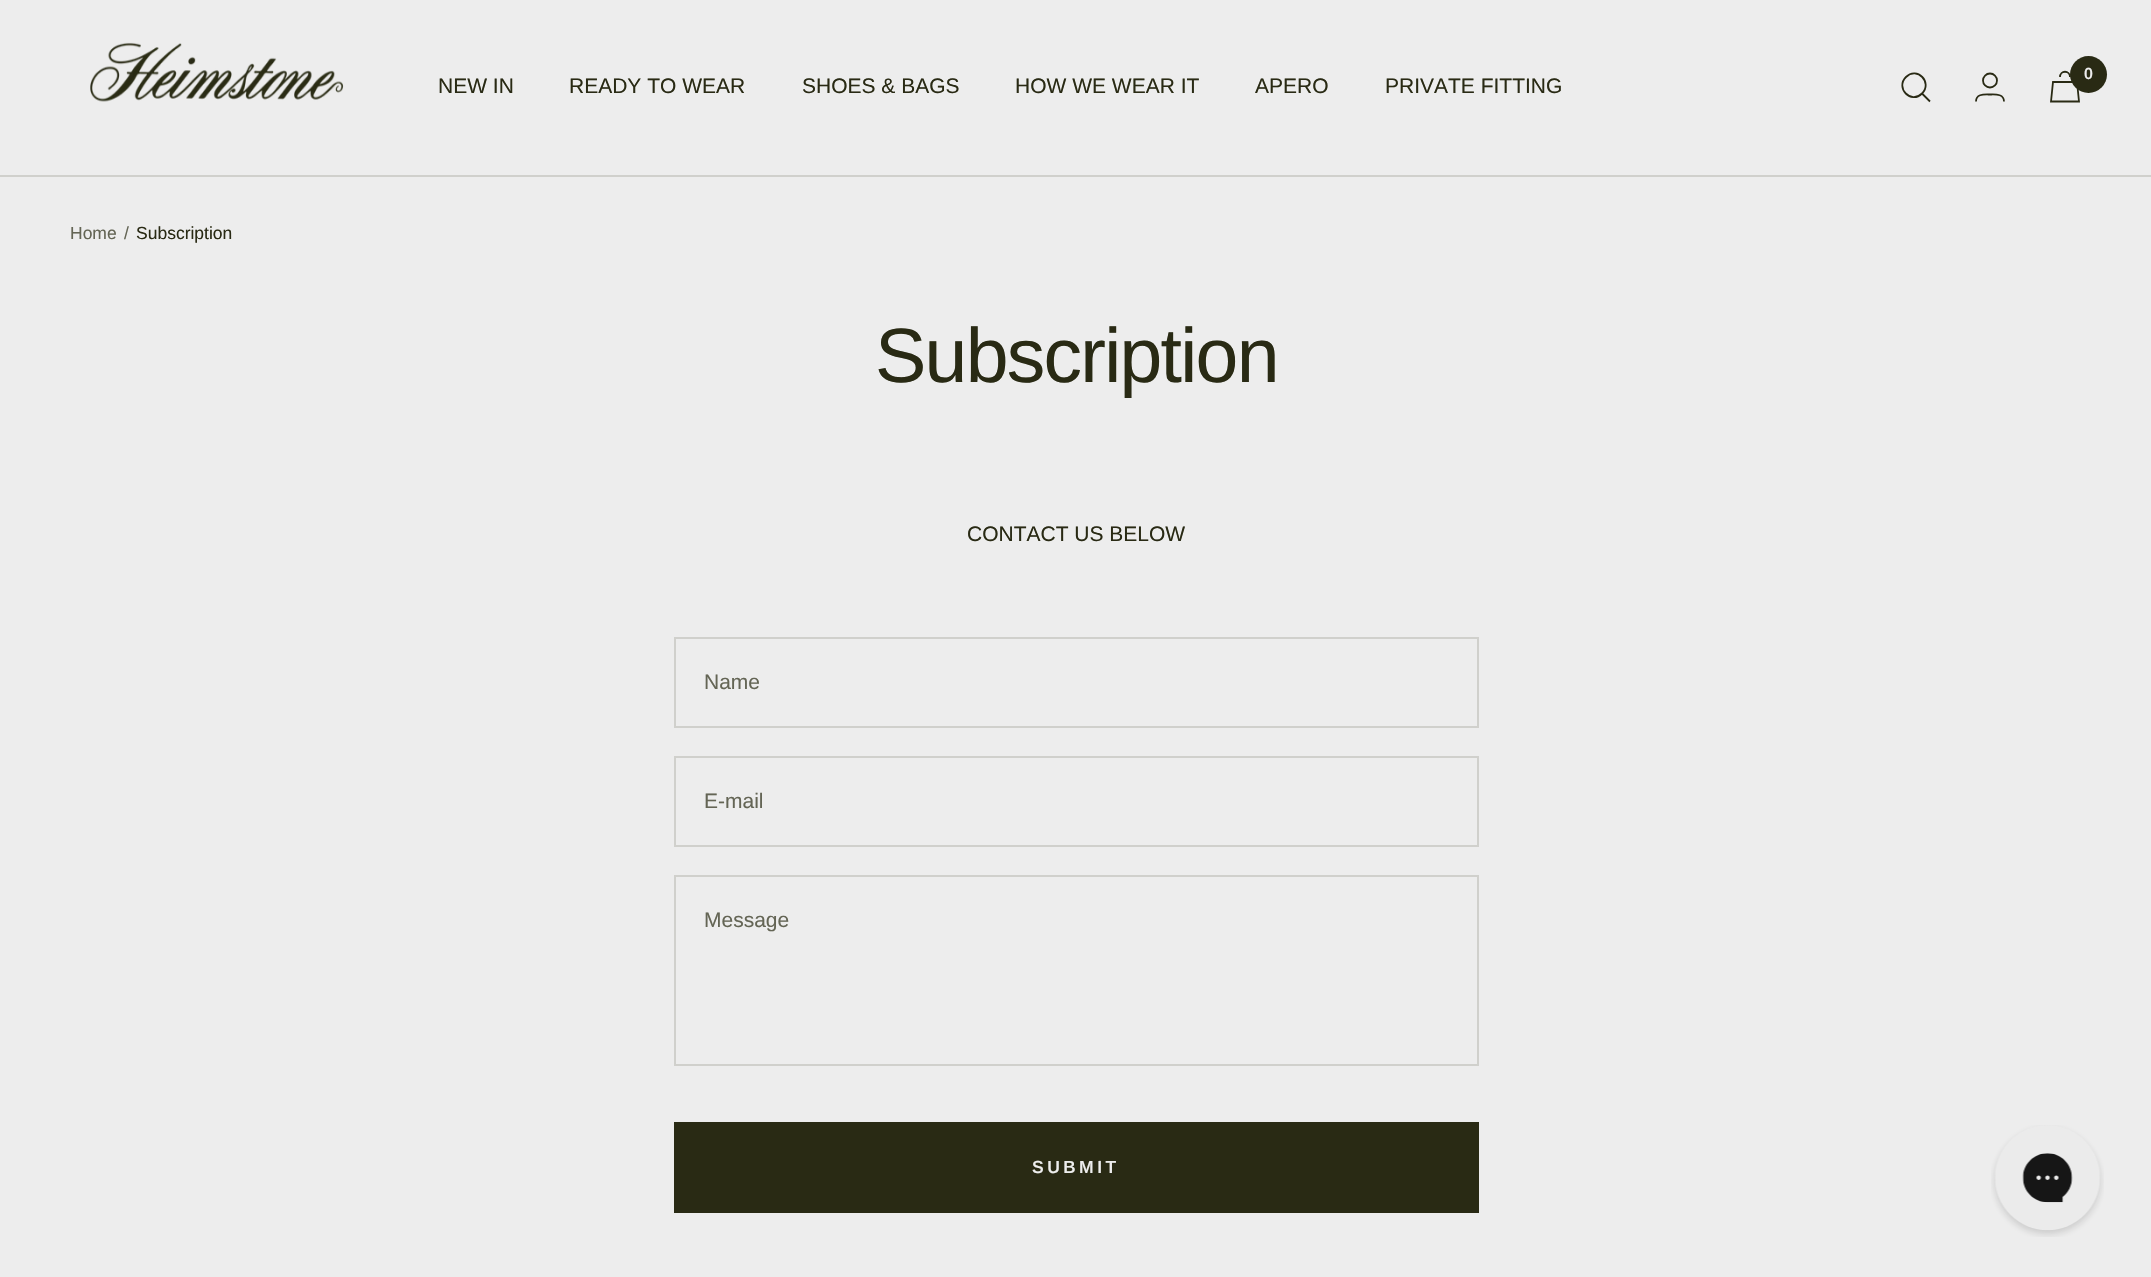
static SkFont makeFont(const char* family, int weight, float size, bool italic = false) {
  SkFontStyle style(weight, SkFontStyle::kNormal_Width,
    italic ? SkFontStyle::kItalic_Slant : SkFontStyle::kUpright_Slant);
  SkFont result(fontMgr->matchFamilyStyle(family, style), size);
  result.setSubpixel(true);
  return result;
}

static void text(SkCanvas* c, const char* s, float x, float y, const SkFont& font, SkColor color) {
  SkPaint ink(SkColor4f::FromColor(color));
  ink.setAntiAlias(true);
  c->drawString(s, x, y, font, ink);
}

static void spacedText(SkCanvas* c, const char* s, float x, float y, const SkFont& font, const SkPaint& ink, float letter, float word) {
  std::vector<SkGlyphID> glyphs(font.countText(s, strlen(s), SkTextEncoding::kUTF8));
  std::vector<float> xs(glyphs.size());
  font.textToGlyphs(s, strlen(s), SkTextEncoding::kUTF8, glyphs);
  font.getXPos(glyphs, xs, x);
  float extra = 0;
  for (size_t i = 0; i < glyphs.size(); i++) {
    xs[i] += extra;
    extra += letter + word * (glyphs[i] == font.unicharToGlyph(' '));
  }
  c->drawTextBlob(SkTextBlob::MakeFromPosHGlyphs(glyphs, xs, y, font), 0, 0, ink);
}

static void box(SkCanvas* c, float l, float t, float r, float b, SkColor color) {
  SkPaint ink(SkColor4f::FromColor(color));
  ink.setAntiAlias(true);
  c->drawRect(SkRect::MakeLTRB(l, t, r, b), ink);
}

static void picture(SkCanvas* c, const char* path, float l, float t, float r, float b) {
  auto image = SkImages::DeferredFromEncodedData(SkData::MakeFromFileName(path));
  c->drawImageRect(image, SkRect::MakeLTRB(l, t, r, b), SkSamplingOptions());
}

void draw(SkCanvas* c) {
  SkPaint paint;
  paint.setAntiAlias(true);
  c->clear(0xffededed);
  paint.setColor(0xffd0d0cc);
  c->drawPath(SkPathBuilder().moveTo(0, 175).lineTo(0, 177).lineTo(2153, 177).lineTo(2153, 2).lineTo(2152, 2).lineTo(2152, 175).close().detach(), paint);
  picture(c, "img_01.png", 90, 42, 344, 102);
  paint.setStyle(SkPaint::kStroke_Style);
  paint.setStrokeWidth(1.8f);
  paint.setColor(0xff292a14);
  c->drawPath(SkPathBuilder().moveTo(1922, 93.5f).cubicTo(1933, 82.5f, 1917, 66, 1906, 77).cubicTo(1895, 88, 1911, 104.5f, 1922, 93.5f).close().moveTo(1922, 93.5f).lineTo(1930, 101.5f).detach(), paint);
  c->drawCircle(1990, 80.5f, 7, paint);
  c->drawPath(SkPathBuilder().moveTo(1976, 101.5f).cubicTo(1976, 93.5f, 1984.5f, 94.5f, 1990, 94.5f).cubicTo(1995, 94.5f, 2004, 93.5f, 2004, 101.5f).detach(), paint);
  c->drawPath(SkPathBuilder().moveTo(2053, 82).lineTo(2077, 82).lineTo(2079, 101.5f).lineTo(2051, 101.5f).close().moveTo(2070, 77).cubicTo(2070, 70, 2060, 70, 2060, 77).detach(), paint);
  paint.setStyle(SkPaint::kFill_Style);
  c->drawCircle(2088.5f, 74.5f, 18.5f, paint);
  SkFont face1 = makeFont("Arimo", 600, 16);
  text(c, "0", 2084, 79, face1, 0xffededed);
  SkFont face2 = makeFont("Arimo", 400, 21);
  text(c, "NEW IN", 438, 93, face2, 0xff292a14);
  text(c, "READY TO WEAR", 569, 93, face2, 0xff292a14);
  text(c, "SHOES & BAGS", 802, 93, face2, 0xff292a14);
  text(c, "HOW WE WEAR IT", 1015, 93, face2, 0xff292a14);
  text(c, "APERO", 1255, 93, face2, 0xff292a14);
  text(c, "PRIVATE FITTING", 1385, 93, face2, 0xff292a14);
  SkFont face3 = makeFont("Arimo", 400, 17.5f);
  text(c, "Home", 70, 239, face3, 0xff646555);
  text(c, "/", 124, 239, face3, 0xff646555);
  text(c, "Subscription", 136, 239, face3, 0xff292a14);
  SkFont face4 = makeFont("Arimo", 400, 77);
  spacedText(c, "Subscription", 875, 382, face4, paint, -1.75f, 0);
  text(c, "CONTACT US BELOW", 967, 541, face2, 0xff292a14);
  paint.setStyle(SkPaint::kStroke_Style);
  paint.setStrokeWidth(2);
  paint.setColor(0xffd0d0cc);
  c->drawRect(SkRect::MakeLTRB(675, 638, 1478, 727), paint);
  text(c, "Name", 704, 689, face2, 0xff646555);
  c->drawRect(SkRect::MakeLTRB(675, 757, 1478, 846), paint);
  text(c, "E-mail", 704, 808, face2, 0xff646555);
  c->drawRect(SkRect::MakeLTRB(675, 876, 1478, 1065), paint);
  text(c, "Message", 704, 927, face2, 0xff646555);
  box(c, 674, 1122, 1479, 1213, 0xff292a14);
  SkFont face5 = makeFont("Arimo", 600, 17.5f);
  paint.setStyle(SkPaint::kFill_Style);
  paint.setColor(0xffededed);
  spacedText(c, "SUBMIT", 1032, 1173, face5, paint, 3.5f, 0);
  picture(c, "img_02.png", 1991, 1125, 2104, 1237);
}
